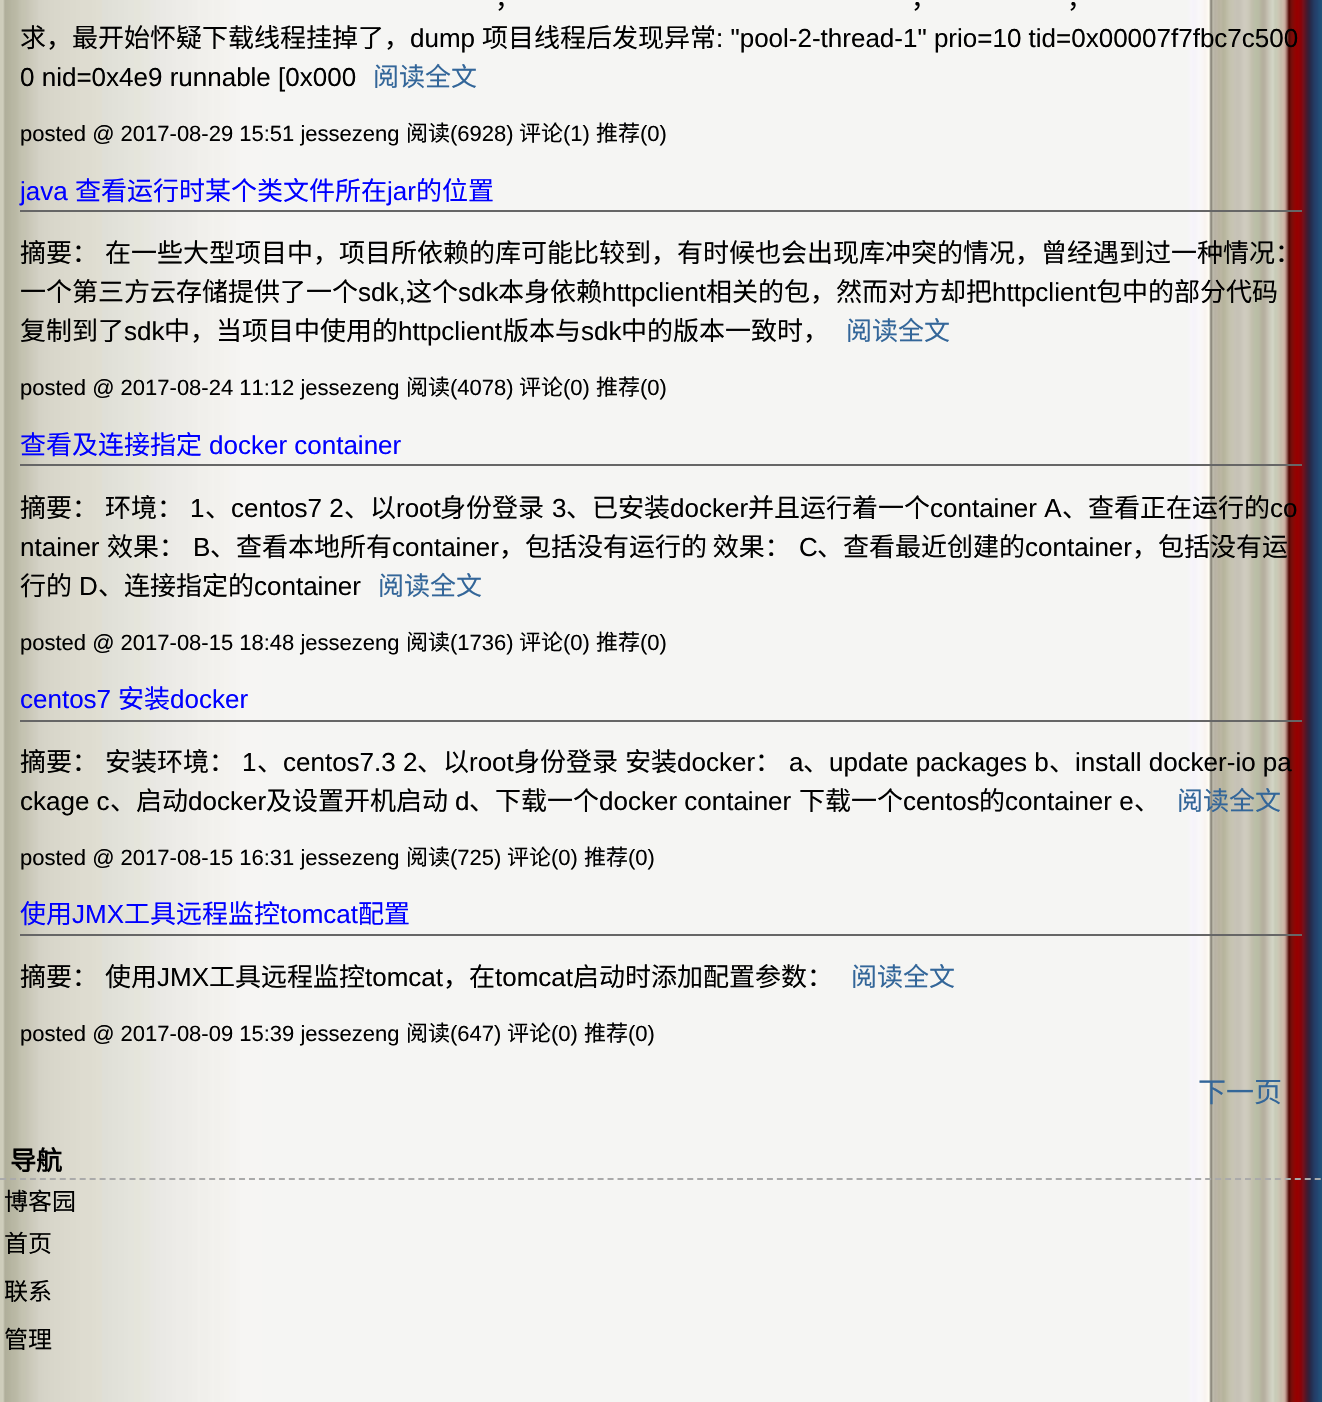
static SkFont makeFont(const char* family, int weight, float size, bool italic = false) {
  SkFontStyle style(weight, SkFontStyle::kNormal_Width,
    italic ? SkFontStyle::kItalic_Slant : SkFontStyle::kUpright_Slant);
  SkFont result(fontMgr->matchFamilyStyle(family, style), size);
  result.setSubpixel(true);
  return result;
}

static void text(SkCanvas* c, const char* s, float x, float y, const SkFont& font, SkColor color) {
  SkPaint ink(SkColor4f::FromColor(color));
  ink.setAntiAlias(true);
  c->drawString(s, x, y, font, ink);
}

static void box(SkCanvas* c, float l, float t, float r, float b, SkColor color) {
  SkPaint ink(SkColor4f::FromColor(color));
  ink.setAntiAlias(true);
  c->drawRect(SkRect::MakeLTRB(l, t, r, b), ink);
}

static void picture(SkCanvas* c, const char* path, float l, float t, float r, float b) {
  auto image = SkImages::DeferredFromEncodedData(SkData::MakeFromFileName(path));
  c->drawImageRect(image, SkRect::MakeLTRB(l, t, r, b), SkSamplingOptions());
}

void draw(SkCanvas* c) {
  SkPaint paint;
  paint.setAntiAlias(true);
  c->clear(0xffffffff);
  picture(c, "img_01.png", 0, 0, 1322, 1402);
  SkFont face1 = makeFont("Noto Sans CJK SC", 400, 26);
  text(c, "，", 495, 8, face1, 0xff000000);
  text(c, "，", 911, 8, face1, 0xff000000);
  text(c, "，", 1067, 8, face1, 0xff000000);
  text(c, "求，最开始怀疑下载线程挂掉了，", 20, 47, face1, 0xff000000);
  SkFont face2 = makeFont("Liberation Sans", 400, 26);
  text(c, "dump", 410, 47, face2, 0xff000000);
  text(c, "项目线程后发现异常", 482, 47, face1, 0xff000000);
  text(c, ": \"pool-2-thread-1\" prio=10 tid=0x00007f7fbc7c500", 716, 47, face2, 0xff000000);
  text(c, "0 nid=0x4e9 runnable [0x000", 20, 86, face2, 0xff000000);
  text(c, "阅读全文", 373, 86, face1, 0xff336699);
  SkFont face3 = makeFont("Liberation Sans", 400, 22);
  text(c, "posted @ 2017-08-29 15:51 jessezeng", 20, 141, face3, 0xff000000);
  SkFont face4 = makeFont("Noto Sans CJK SC", 400, 22);
  text(c, "阅读", 406, 141, face4, 0xff000000);
  text(c, "(6928)", 450, 141, face3, 0xff000000);
  text(c, "评论", 519, 141, face4, 0xff000000);
  text(c, "(1)", 563, 141, face3, 0xff000000);
  text(c, "推荐", 596, 141, face4, 0xff000000);
  text(c, "(0)", 640, 141, face3, 0xff000000);
  box(c, 20, 210, 1302, 212, 0xff666666);
  text(c, "java", 20, 200, face2, 0xff0000ff);
  text(c, "查看运行时某个类文件所在", 75, 200, face1, 0xff0000ff);
  text(c, "jar", 387, 200, face2, 0xff0000ff);
  text(c, "的位置", 416, 200, face1, 0xff0000ff);
  text(c, "摘要：", 20, 262, face1, 0xff000000);
  text(c, "在一些大型项目中，项目所依赖的库可能比较到，有时候也会出现库冲突的情况，曾经遇到过一种情况：", 105, 262, face1, 0xff000000);
  text(c, "一个第三方云存储提供了一个", 20, 301, face1, 0xff000000);
  text(c, "sdk,", 358, 301, face2, 0xff000000);
  text(c, "这个", 406, 301, face1, 0xff000000);
  text(c, "sdk", 458, 301, face2, 0xff000000);
  text(c, "本身依赖", 498, 301, face1, 0xff000000);
  text(c, "httpclient", 602, 301, face2, 0xff000000);
  text(c, "相关的包，然而对方却把", 706, 301, face1, 0xff000000);
  text(c, "httpclient", 992, 301, face2, 0xff000000);
  text(c, "包中的部分代码", 1096, 301, face1, 0xff000000);
  text(c, "复制到了", 20, 340, face1, 0xff000000);
  text(c, "sdk", 124, 340, face2, 0xff000000);
  text(c, "中，当项目中使用的", 164, 340, face1, 0xff000000);
  text(c, "httpclient", 398, 340, face2, 0xff000000);
  text(c, "版本与", 503, 340, face1, 0xff000000);
  text(c, "sdk", 581, 340, face2, 0xff000000);
  text(c, "中的版本一致时，", 621, 340, face1, 0xff000000);
  text(c, "阅读全文", 846, 340, face1, 0xff336699);
  text(c, "posted @ 2017-08-24 11:12 jessezeng", 20, 395, face3, 0xff000000);
  text(c, "阅读", 406, 395, face4, 0xff000000);
  text(c, "(4078)", 450, 395, face3, 0xff000000);
  text(c, "评论", 519, 395, face4, 0xff000000);
  text(c, "(0)", 563, 395, face3, 0xff000000);
  text(c, "推荐", 596, 395, face4, 0xff000000);
  text(c, "(0)", 640, 395, face3, 0xff000000);
  box(c, 20, 464, 1302, 466, 0xff666666);
  text(c, "查看及连接指定", 20, 454, face1, 0xff0000ff);
  text(c, "docker container", 209, 454, face2, 0xff0000ff);
  text(c, "摘要：", 20, 517, face1, 0xff000000);
  text(c, "环境：", 105, 517, face1, 0xff000000);
  text(c, "1", 190, 517, face2, 0xff000000);
  text(c, "、", 205, 517, face1, 0xff000000);
  text(c, "centos7 2", 231, 517, face2, 0xff000000);
  text(c, "、以", 344, 517, face1, 0xff000000);
  text(c, "root", 396, 517, face2, 0xff000000);
  text(c, "身份登录", 440, 517, face1, 0xff000000);
  text(c, "3", 552, 517, face2, 0xff000000);
  text(c, "、已安装", 566, 517, face1, 0xff000000);
  text(c, "docker", 670, 517, face2, 0xff000000);
  text(c, "并且运行着一个", 748, 517, face1, 0xff000000);
  text(c, "container A", 930, 517, face2, 0xff000000);
  text(c, "、查看正在运行的", 1062, 517, face1, 0xff000000);
  text(c, "co", 1270, 517, face2, 0xff000000);
  text(c, "ntainer", 20, 556, face2, 0xff000000);
  text(c, "效果：", 107, 556, face1, 0xff000000);
  text(c, "B", 193, 556, face2, 0xff000000);
  text(c, "、查看本地所有", 210, 556, face1, 0xff000000);
  text(c, "container", 392, 556, face2, 0xff000000);
  text(c, "，包括没有运行的 效果：", 499, 556, face1, 0xff000000);
  text(c, "C", 799, 556, face2, 0xff000000);
  text(c, "、查看最近创建的", 817, 556, face1, 0xff000000);
  text(c, "container", 1025, 556, face2, 0xff000000);
  text(c, "，包括没有运", 1132, 556, face1, 0xff000000);
  text(c, "行的", 20, 595, face1, 0xff000000);
  text(c, "D", 79, 595, face2, 0xff000000);
  text(c, "、连接指定的", 98, 595, face1, 0xff000000);
  text(c, "container", 254, 595, face2, 0xff000000);
  text(c, "阅读全文", 378, 595, face1, 0xff336699);
  text(c, "posted @ 2017-08-15 18:48 jessezeng", 20, 650, face3, 0xff000000);
  text(c, "阅读", 406, 650, face4, 0xff000000);
  text(c, "(1736)", 450, 650, face3, 0xff000000);
  text(c, "评论", 519, 650, face4, 0xff000000);
  text(c, "(0)", 563, 650, face3, 0xff000000);
  text(c, "推荐", 596, 650, face4, 0xff000000);
  text(c, "(0)", 640, 650, face3, 0xff000000);
  box(c, 20, 720, 1302, 722, 0xff666666);
  text(c, "centos7", 20, 708, face2, 0xff0000ff);
  text(c, "安装", 118, 708, face1, 0xff0000ff);
  text(c, "docker", 170, 708, face2, 0xff0000ff);
  text(c, "摘要：", 20, 771, face1, 0xff000000);
  text(c, "安装环境：", 105, 771, face1, 0xff000000);
  text(c, "1", 242, 771, face2, 0xff000000);
  text(c, "、", 257, 771, face1, 0xff000000);
  text(c, "centos7.3 2", 283, 771, face2, 0xff000000);
  text(c, "、以", 417, 771, face1, 0xff000000);
  text(c, "root", 469, 771, face2, 0xff000000);
  text(c, "身份登录", 514, 771, face1, 0xff000000);
  text(c, "安装", 625, 771, face1, 0xff000000);
  text(c, "docker", 677, 771, face2, 0xff000000);
  text(c, "：", 755, 771, face1, 0xff000000);
  text(c, "a", 789, 771, face2, 0xff000000);
  text(c, "、", 803, 771, face1, 0xff000000);
  text(c, "update packages b", 829, 771, face2, 0xff000000);
  text(c, "、", 1049, 771, face1, 0xff000000);
  text(c, "install docker-io pa", 1075, 771, face2, 0xff000000);
  text(c, "ckage c", 20, 810, face2, 0xff000000);
  text(c, "、启动", 110, 810, face1, 0xff000000);
  text(c, "docker", 188, 810, face2, 0xff000000);
  text(c, "及设置开机启动", 266, 810, face1, 0xff000000);
  text(c, "d", 455, 810, face2, 0xff000000);
  text(c, "、下载一个", 469, 810, face1, 0xff000000);
  text(c, "docker container", 599, 810, face2, 0xff000000);
  text(c, "下载一个", 799, 810, face1, 0xff000000);
  text(c, "centos", 903, 810, face2, 0xff000000);
  text(c, "的", 979, 810, face1, 0xff000000);
  text(c, "container e", 1005, 810, face2, 0xff000000);
  text(c, "、", 1134, 810, face1, 0xff000000);
  text(c, "阅读全文", 1177, 810, face1, 0xff336699);
  text(c, "posted @ 2017-08-15 16:31 jessezeng", 20, 865, face3, 0xff000000);
  text(c, "阅读", 406, 865, face4, 0xff000000);
  text(c, "(725)", 450, 865, face3, 0xff000000);
  text(c, "评论", 507, 865, face4, 0xff000000);
  text(c, "(0)", 551, 865, face3, 0xff000000);
  text(c, "推荐", 584, 865, face4, 0xff000000);
  text(c, "(0)", 628, 865, face3, 0xff000000);
  box(c, 20, 934, 1302, 936, 0xff666666);
  text(c, "使用", 20, 923, face1, 0xff0000ff);
  text(c, "JMX", 72, 923, face2, 0xff0000ff);
  text(c, "工具远程监控", 124, 923, face1, 0xff0000ff);
  text(c, "tomcat", 280, 923, face2, 0xff0000ff);
  text(c, "配置", 358, 923, face1, 0xff0000ff);
  text(c, "摘要：", 20, 986, face1, 0xff000000);
  text(c, "使用", 105, 986, face1, 0xff000000);
  text(c, "JMX", 157, 986, face2, 0xff000000);
  text(c, "工具远程监控", 209, 986, face1, 0xff000000);
  text(c, "tomcat", 365, 986, face2, 0xff000000);
  text(c, "，在", 443, 986, face1, 0xff000000);
  text(c, "tomcat", 495, 986, face2, 0xff000000);
  text(c, "启动时添加配置参数：", 573, 986, face1, 0xff000000);
  text(c, "阅读全文", 851, 986, face1, 0xff336699);
  text(c, "posted @ 2017-08-09 15:39 jessezeng", 20, 1041, face3, 0xff000000);
  text(c, "阅读", 406, 1041, face4, 0xff000000);
  text(c, "(647)", 450, 1041, face3, 0xff000000);
  text(c, "评论", 507, 1041, face4, 0xff000000);
  text(c, "(0)", 551, 1041, face3, 0xff000000);
  text(c, "推荐", 584, 1041, face4, 0xff000000);
  text(c, "(0)", 628, 1041, face3, 0xff000000);
  SkFont face5 = makeFont("Noto Sans CJK SC", 400, 28);
  text(c, "下一页", 1198, 1102, face5, 0xff336699);
  paint.setStyle(SkPaint::kStroke_Style);
  paint.setStrokeWidth(2);
  paint.setColor(0xffaaaaaa);
  paint.setPathEffect(SkDashPathEffect::Make({{6, 3.96f}}, 0));
  c->drawPath(SkPathBuilder().moveTo(0, 1179).lineTo(1322, 1179).detach(), paint);
  paint.setPathEffect(nullptr);
  SkFont face6 = makeFont("Noto Sans CJK SC", 700, 26);
  text(c, "导航", 10, 1170, face6, 0xff000000);
  SkFont face7 = makeFont("Noto Sans CJK SC", 400, 24);
  text(c, "博客园", 4, 1210, face7, 0xff000000);
  text(c, "首页", 4, 1252, face7, 0xff000000);
  text(c, "联系", 4, 1300, face7, 0xff000000);
  text(c, "管理", 4, 1348, face7, 0xff000000);
}
